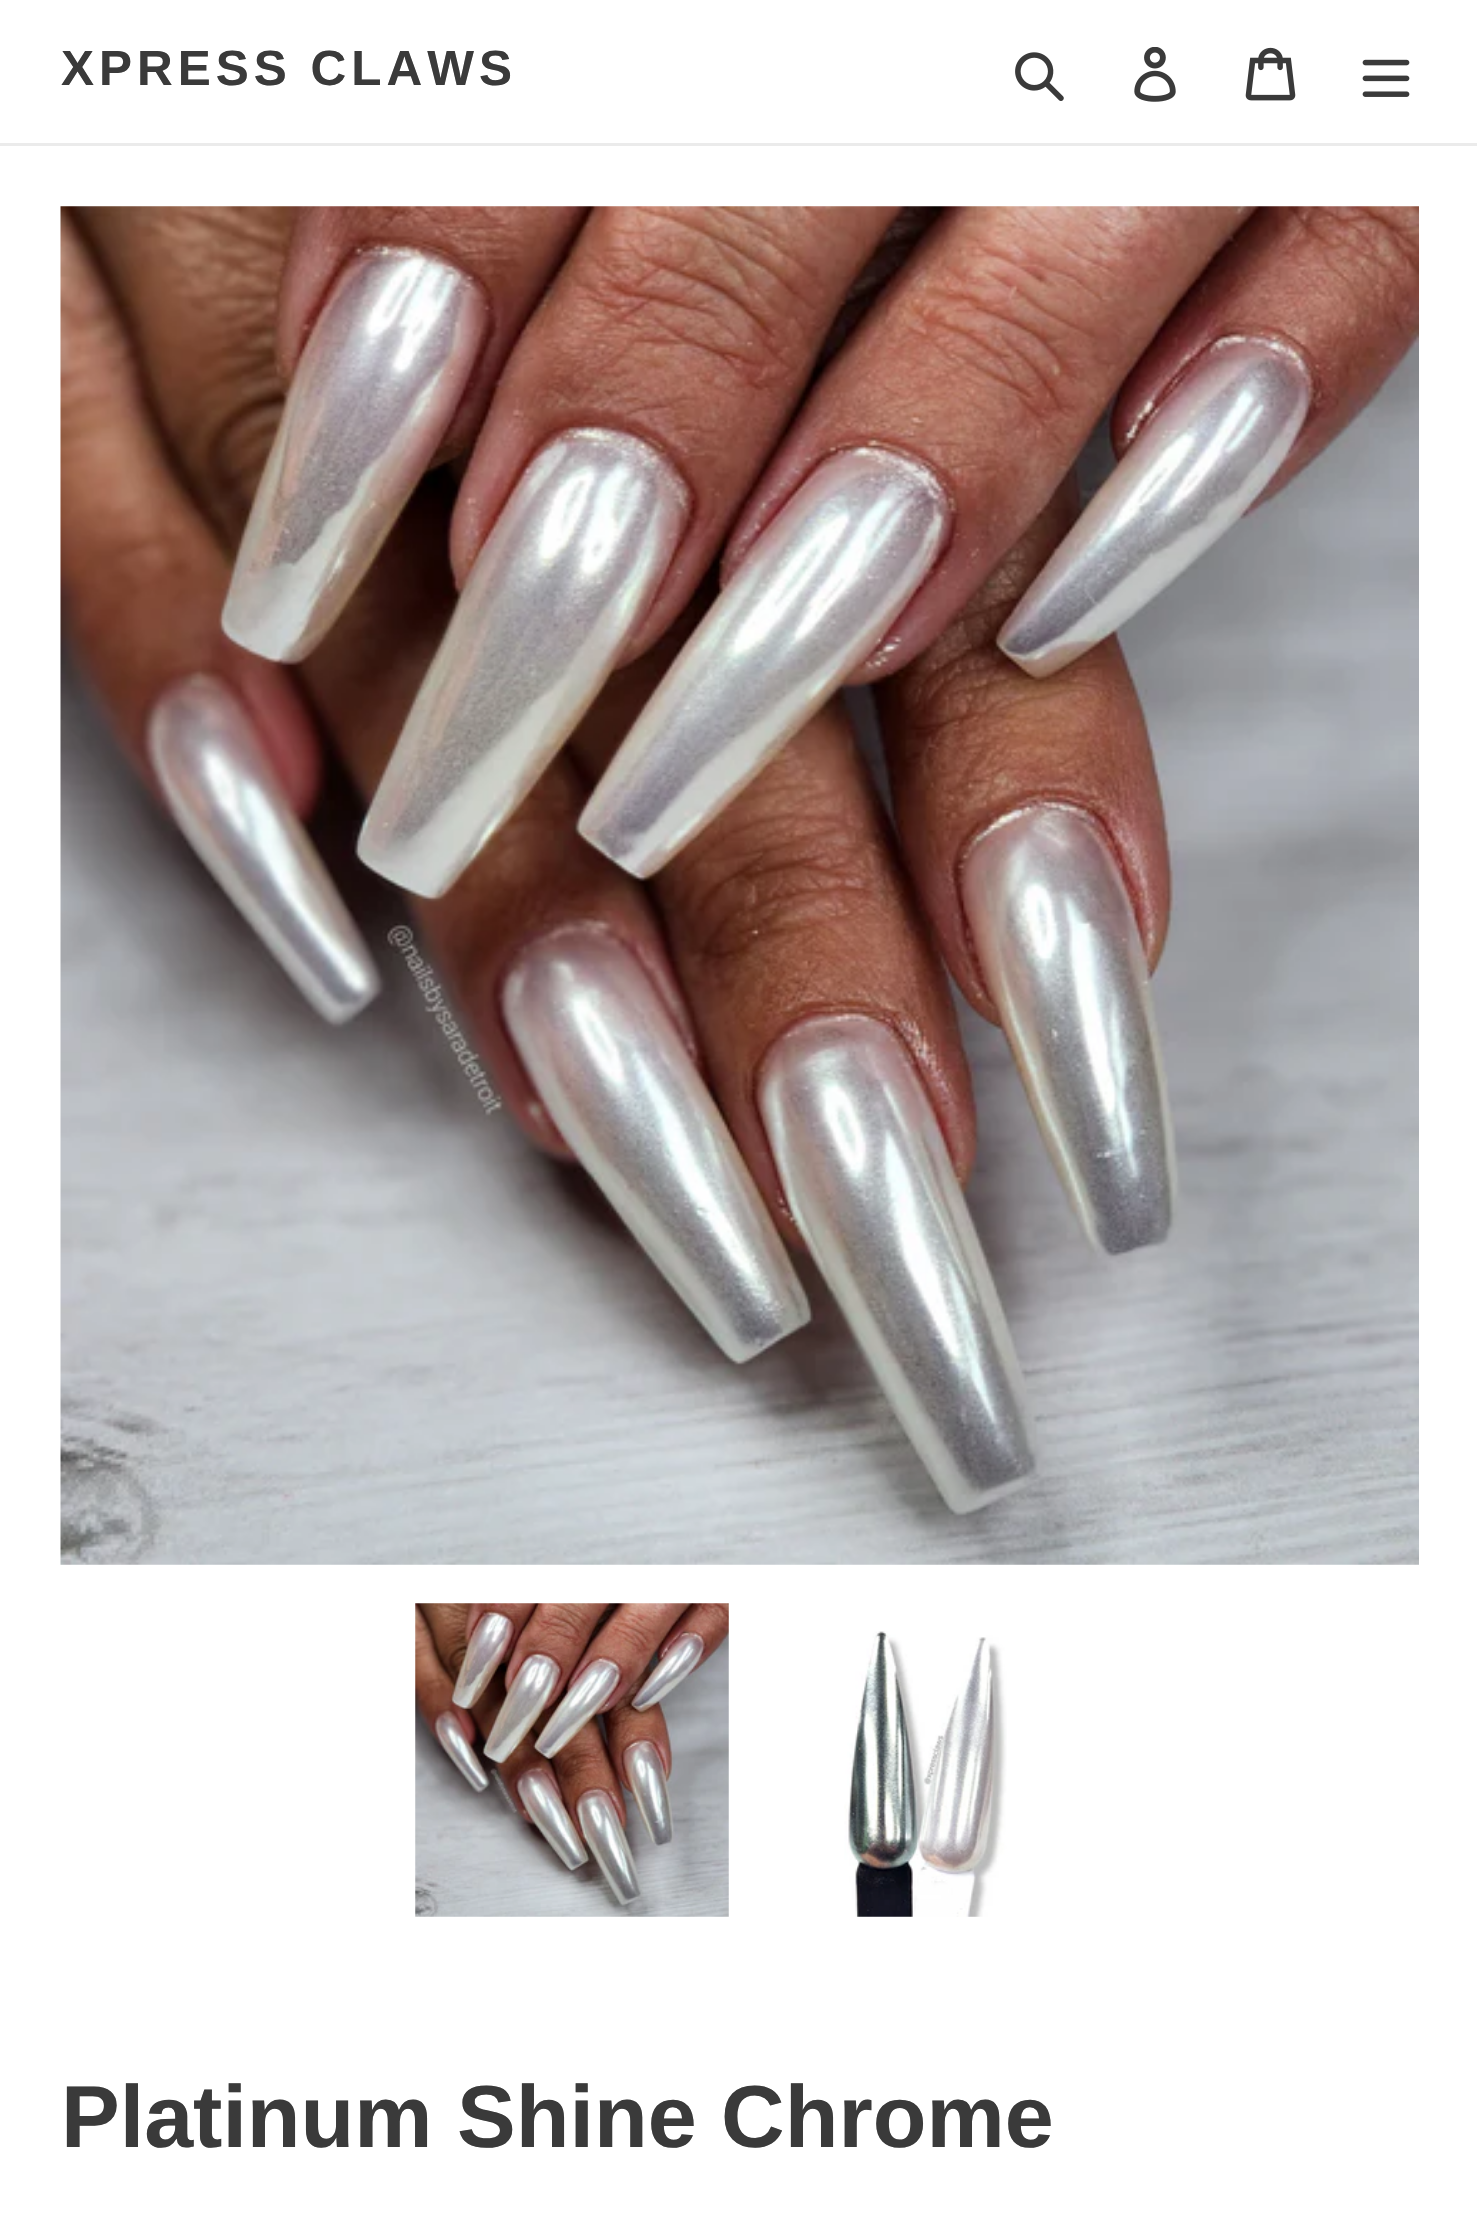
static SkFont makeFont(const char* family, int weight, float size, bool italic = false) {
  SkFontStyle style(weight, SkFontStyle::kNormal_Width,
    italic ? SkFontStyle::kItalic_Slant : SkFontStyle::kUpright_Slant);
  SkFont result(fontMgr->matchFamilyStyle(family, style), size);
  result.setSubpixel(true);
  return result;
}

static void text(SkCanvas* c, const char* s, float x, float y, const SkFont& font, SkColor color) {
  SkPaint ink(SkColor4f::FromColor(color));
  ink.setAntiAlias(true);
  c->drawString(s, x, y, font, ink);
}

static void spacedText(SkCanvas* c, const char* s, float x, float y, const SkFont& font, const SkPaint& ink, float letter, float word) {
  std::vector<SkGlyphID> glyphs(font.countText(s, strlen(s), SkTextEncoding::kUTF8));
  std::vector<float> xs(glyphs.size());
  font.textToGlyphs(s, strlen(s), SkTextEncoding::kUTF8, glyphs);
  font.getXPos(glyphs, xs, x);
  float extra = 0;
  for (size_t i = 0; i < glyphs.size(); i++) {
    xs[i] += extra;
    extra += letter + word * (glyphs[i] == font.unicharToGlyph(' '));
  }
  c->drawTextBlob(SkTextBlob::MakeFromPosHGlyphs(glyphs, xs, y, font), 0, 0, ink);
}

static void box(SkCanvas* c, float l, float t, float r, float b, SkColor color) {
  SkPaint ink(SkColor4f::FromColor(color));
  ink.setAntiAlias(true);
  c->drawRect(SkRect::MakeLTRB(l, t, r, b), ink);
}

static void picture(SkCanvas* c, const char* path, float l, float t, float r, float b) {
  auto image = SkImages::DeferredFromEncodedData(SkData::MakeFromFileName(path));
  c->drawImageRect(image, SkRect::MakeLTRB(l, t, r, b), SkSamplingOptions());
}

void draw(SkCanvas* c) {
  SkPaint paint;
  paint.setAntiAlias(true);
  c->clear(0xffffffff);
  box(c, 0, 143, 1477, 146, 0xffebebeb);
  SkFont face1 = makeFont("Liberation Sans", 700, 49.5f);
  paint.setColor(0xff3a3a3a);
  spacedText(c, "XPRESS CLAWS", 61, 85, face1, paint, 5, 0);
  picture(c, "img_01.png", 1015, 52, 1064, 101);
  picture(c, "img_02.png", 1134, 47, 1176, 102);
  picture(c, "img_03.png", 1245, 47, 1296, 101);
  picture(c, "img_04.png", 1362, 59, 1410, 97);
  picture(c, "img_05.png", 60, 206, 1419, 1565);
  picture(c, "img_06.png", 415, 1603, 729, 1917);
  picture(c, "img_07.png", 844, 1631, 1007, 1917);
  SkFont face2 = makeFont("Liberation Sans", 700, 88);
  text(c, "Platinum Shine Chrome", 61, 2147, face2, 0xff3a3a3a);
}
